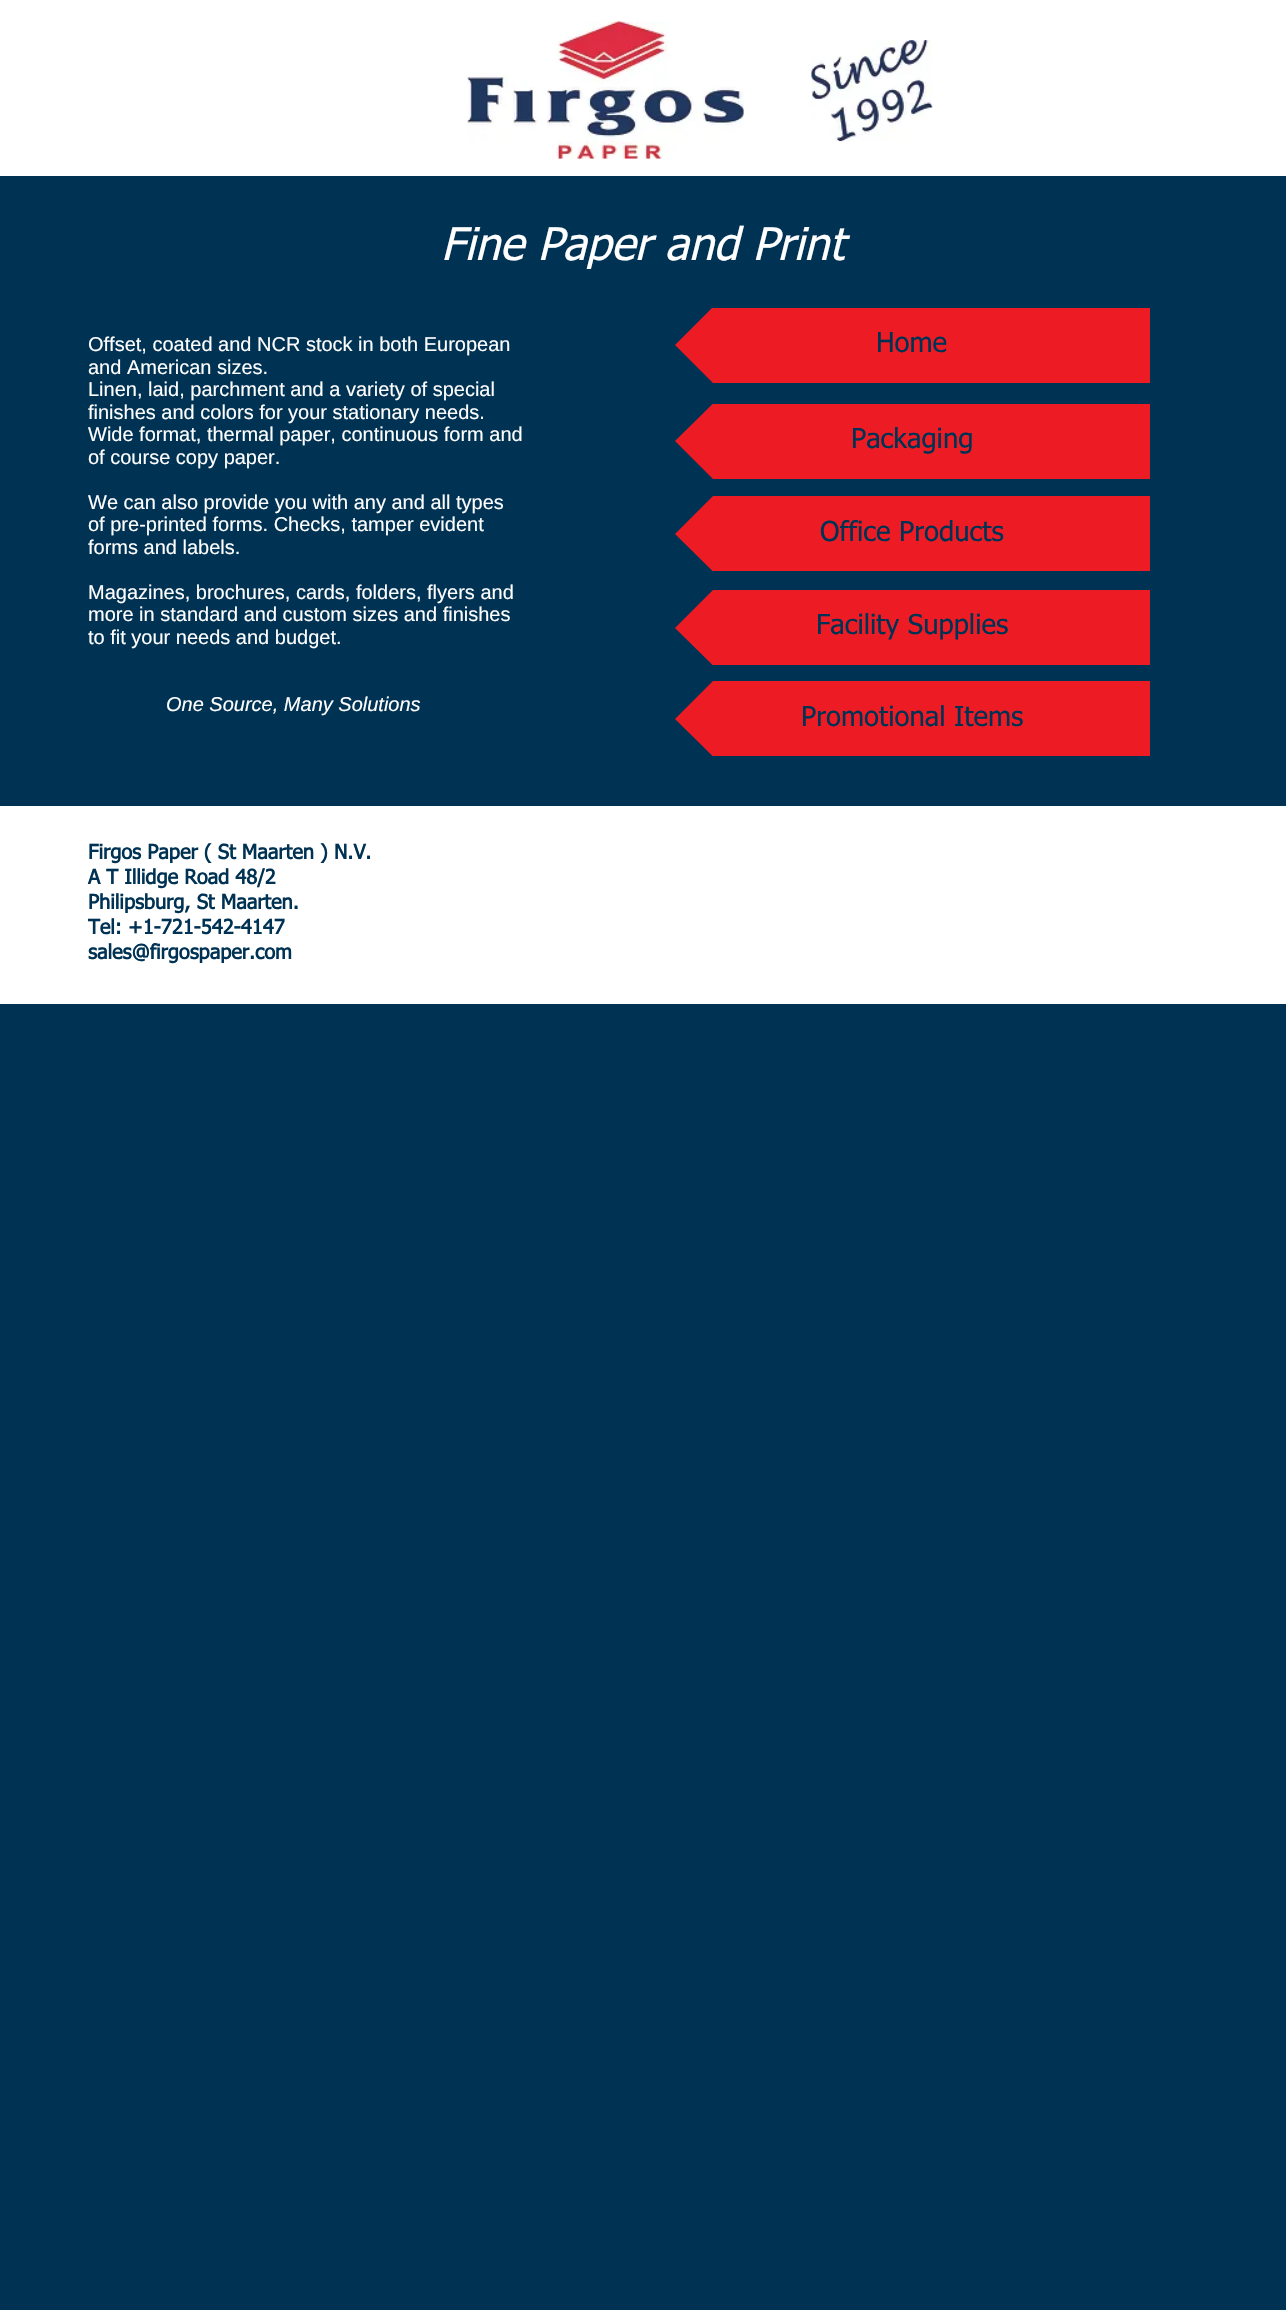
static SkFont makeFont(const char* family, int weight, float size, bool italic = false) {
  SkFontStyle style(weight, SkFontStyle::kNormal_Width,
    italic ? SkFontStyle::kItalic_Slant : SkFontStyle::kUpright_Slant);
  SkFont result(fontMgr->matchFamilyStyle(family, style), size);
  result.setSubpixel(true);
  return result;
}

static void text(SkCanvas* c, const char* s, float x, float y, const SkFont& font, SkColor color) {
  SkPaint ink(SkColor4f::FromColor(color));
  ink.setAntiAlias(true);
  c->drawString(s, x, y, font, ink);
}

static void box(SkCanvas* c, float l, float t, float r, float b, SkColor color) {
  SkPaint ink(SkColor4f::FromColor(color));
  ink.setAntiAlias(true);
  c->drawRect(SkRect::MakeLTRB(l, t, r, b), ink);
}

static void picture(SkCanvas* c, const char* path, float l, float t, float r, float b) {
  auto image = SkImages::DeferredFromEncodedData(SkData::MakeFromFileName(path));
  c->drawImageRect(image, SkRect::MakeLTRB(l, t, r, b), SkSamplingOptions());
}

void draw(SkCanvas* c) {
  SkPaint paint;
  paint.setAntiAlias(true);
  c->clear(0xff003254);
  box(c, 0, 0, 1286, 176, 0xffffffff);
  picture(c, "img_01.png", 467, 21, 744, 159);
  picture(c, "img_02.png", 811, 40, 933, 142);
  SkFont face1 = makeFont("tahoma", 400, 45, true);
  text(c, "Fine Paper and Print", 441, 260, face1, 0xffffffff);
  SkFont face2 = makeFont("Liberation Sans", 400, 20);
  text(c, "Offset, coated and NCR stock in both European", 88, 351, face2, 0xffffffff);
  text(c, "and American sizes.", 88, 374, face2, 0xffffffff);
  text(c, "Linen, laid, parchment and a variety of special", 88, 396, face2, 0xffffffff);
  text(c, "finishes and colors for your stationary needs.", 88, 419, face2, 0xffffffff);
  text(c, "Wide format, thermal paper, continuous form and", 88, 441, face2, 0xffffffff);
  text(c, "of course copy paper.", 88, 464, face2, 0xffffffff);
  text(c, "We can also provide you with any and all types", 88, 509, face2, 0xffffffff);
  text(c, "of pre-printed forms. Checks, tamper evident", 88, 531, face2, 0xffffffff);
  text(c, "forms and labels.", 88, 554, face2, 0xffffffff);
  text(c, "Magazines, brochures, cards, folders, flyers and", 88, 599, face2, 0xffffffff);
  text(c, "more in standard and custom sizes and finishes", 88, 621, face2, 0xffffffff);
  text(c, "to fit your needs and budget.", 88, 644, face2, 0xffffffff);
  SkFont face3 = makeFont("Liberation Sans", 400, 20, true);
  text(c, "One Source, Many Solutions", 166, 711, face3, 0xffffffff);
  c->save();
  c->clipRect(SkRect::MakeLTRB(675, 308, 1150, 383));
  paint.setColor(0xffed1c24);
  c->drawPath(SkPathBuilder().moveTo(738, 345).lineTo(675, 345).lineTo(738, 282).close().detach(), paint);
  c->restore();
  box(c, 738, 308, 1150, 383, 0xffed1c24);
  SkFont face4 = makeFont("tahoma", 400, 27.5f);
  text(c, "Home", 876, 352, face4, 0xff003254);
  c->save();
  c->clipRect(SkRect::MakeLTRB(675, 308, 1150, 383));
  c->drawPath(SkPathBuilder().moveTo(675, 345).lineTo(738, 345).lineTo(738, 408).close().detach(), paint);
  c->restore();
  c->save();
  c->clipRect(SkRect::MakeLTRB(675, 404, 1150, 479));
  c->drawPath(SkPathBuilder().moveTo(738, 441).lineTo(675, 441).lineTo(738, 379).close().detach(), paint);
  c->restore();
  box(c, 738, 404, 1150, 479, 0xffed1c24);
  c->save();
  c->clipRect(SkRect::MakeLTRB(675, 404, 1150, 479));
  c->drawPath(SkPathBuilder().moveTo(675, 441).lineTo(738, 441).lineTo(738, 504).close().detach(), paint);
  c->restore();
  text(c, "Packaging", 851, 448, face4, 0xff003254);
  c->save();
  c->clipRect(SkRect::MakeLTRB(675, 496, 1150, 571));
  c->drawPath(SkPathBuilder().moveTo(738, 534).lineTo(675, 534).lineTo(738, 471).close().detach(), paint);
  c->restore();
  box(c, 738, 496, 1150, 571, 0xffed1c24);
  text(c, "Office Products", 820, 541, face4, 0xff003254);
  c->save();
  c->clipRect(SkRect::MakeLTRB(675, 496, 1150, 571));
  c->drawPath(SkPathBuilder().moveTo(675, 534).lineTo(738, 534).lineTo(738, 596).close().detach(), paint);
  c->restore();
  c->save();
  c->clipRect(SkRect::MakeLTRB(675, 590, 1150, 665));
  c->drawPath(SkPathBuilder().moveTo(738, 628).lineTo(675, 628).lineTo(738, 565).close().detach(), paint);
  c->restore();
  box(c, 738, 590, 1150, 665, 0xffed1c24);
  c->save();
  c->clipRect(SkRect::MakeLTRB(675, 590, 1150, 665));
  c->drawPath(SkPathBuilder().moveTo(675, 628).lineTo(738, 628).lineTo(738, 690).close().detach(), paint);
  c->restore();
  text(c, "Facility Supplies", 816, 634, face4, 0xff003254);
  c->save();
  c->clipRect(SkRect::MakeLTRB(675, 681, 1150, 756));
  c->drawPath(SkPathBuilder().moveTo(738, 719).lineTo(675, 719).lineTo(738, 656).close().detach(), paint);
  c->restore();
  box(c, 738, 681, 1150, 756, 0xffed1c24);
  text(c, "Promotional Items", 801, 726, face4, 0xff003254);
  c->save();
  c->clipRect(SkRect::MakeLTRB(675, 681, 1150, 756));
  c->drawPath(SkPathBuilder().moveTo(675, 719).lineTo(738, 719).lineTo(738, 781).close().detach(), paint);
  c->restore();
  box(c, 0, 806, 1286, 1004, 0xffffffff);
  SkFont face5 = makeFont("tahoma", 700, 20);
  text(c, "Firgos Paper ( St Maarten ) N.V.", 88, 859, face5, 0xff003254);
  text(c, "A T Illidge Road 48/2", 88, 884, face5, 0xff003254);
  text(c, "Philipsburg, St Maarten.", 88, 909, face5, 0xff003254);
  text(c, "Tel: +1-721-542-4147", 88, 934, face5, 0xff003254);
  text(c, "sales@firgospaper.com", 88, 959, face5, 0xff003254);
}
